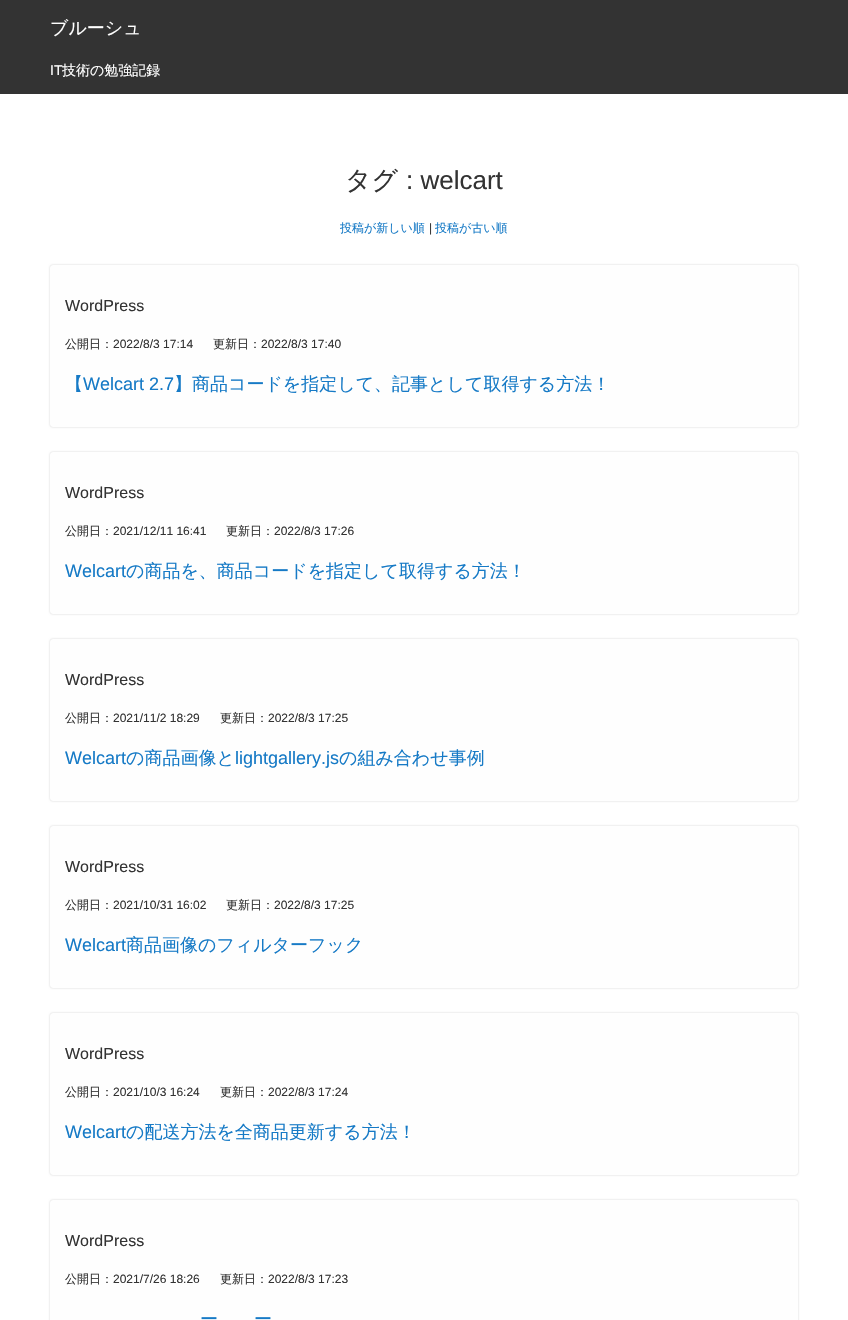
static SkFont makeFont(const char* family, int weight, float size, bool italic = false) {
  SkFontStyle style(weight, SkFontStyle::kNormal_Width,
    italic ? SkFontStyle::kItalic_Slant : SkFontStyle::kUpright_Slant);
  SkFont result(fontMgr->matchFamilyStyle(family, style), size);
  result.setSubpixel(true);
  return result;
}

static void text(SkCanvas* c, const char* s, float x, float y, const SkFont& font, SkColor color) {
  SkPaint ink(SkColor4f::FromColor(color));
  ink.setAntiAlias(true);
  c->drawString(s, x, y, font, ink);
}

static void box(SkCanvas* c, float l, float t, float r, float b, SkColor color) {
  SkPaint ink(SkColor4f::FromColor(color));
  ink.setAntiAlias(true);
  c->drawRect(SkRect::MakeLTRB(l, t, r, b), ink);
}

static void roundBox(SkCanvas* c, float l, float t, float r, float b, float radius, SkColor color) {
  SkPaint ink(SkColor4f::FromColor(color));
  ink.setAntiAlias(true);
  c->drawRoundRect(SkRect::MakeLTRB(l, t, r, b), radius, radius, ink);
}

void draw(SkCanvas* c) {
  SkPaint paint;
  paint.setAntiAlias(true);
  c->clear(0xffffffff);
  box(c, 0, 0, 848, 94, 0xff333333);
  SkFont face1 = makeFont("WenQuanYi Zen Hei", 500, 18);
  text(c, "ブルーシュ", 50, 34, face1, 0xffffffff);
  SkFont face2 = makeFont("Liberation Sans", 400, 14);
  text(c, "IT", 50, 75, face2, 0xffffffff);
  SkFont face3 = makeFont("WenQuanYi Zen Hei", 500, 14);
  text(c, "技術の勉強記録", 62, 75, face3, 0xffffffff);
  SkFont face4 = makeFont("WenQuanYi Zen Hei", 500, 26);
  text(c, "タグ", 345, 189, face4, 0xff333333);
  SkFont face5 = makeFont("Liberation Sans", 400, 26);
  text(c, ": welcart", 406, 189, face5, 0xff333333);
  SkFont face6 = makeFont("WenQuanYi Zen Hei", 500, 12);
  text(c, "投稿が新しい順", 340, 232, face6, 0xff167ac6);
  SkFont face7 = makeFont("Liberation Sans", 400, 12);
  text(c, "|", 429, 232, face7, 0xff333333);
  text(c, "投稿が古い順", 435, 232, face6, 0xff167ac6);
  paint.setColor(0xffcccccc);
  paint.setMaskFilter(SkMaskFilter::MakeBlur(kNormal_SkBlurStyle, 1));
  c->drawRoundRect(SkRect::MakeLTRB(50, 265, 798, 427), 3, 3, paint);
  paint.setMaskFilter(nullptr);
  roundBox(c, 50, 265, 798, 427, 3, 0xfffefefe);
  SkFont face8 = makeFont("Liberation Sans", 400, 16);
  text(c, "WordPress", 65, 311, face8, 0xff333333);
  text(c, "公開日：", 65, 348, face6, 0xff333333);
  text(c, "2022/8/3 17:14", 113, 348, face7, 0xff333333);
  text(c, "更新日：", 213, 348, face6, 0xff333333);
  text(c, "2022/8/3 17:40", 261, 348, face7, 0xff333333);
  text(c, "【", 65, 390, face1, 0xff167ac6);
  SkFont face9 = makeFont("Liberation Sans", 400, 18);
  text(c, "Welcart 2.7", 83, 390, face9, 0xff167ac6);
  text(c, "】商品コードを指定して、記事として取得する方法！", 174, 390, face1, 0xff167ac6);
  paint.setMaskFilter(SkMaskFilter::MakeBlur(kNormal_SkBlurStyle, 1));
  c->drawRoundRect(SkRect::MakeLTRB(50, 452, 798, 614), 3, 3, paint);
  paint.setMaskFilter(nullptr);
  roundBox(c, 50, 452, 798, 614, 3, 0xfffefefe);
  text(c, "WordPress", 65, 498, face8, 0xff333333);
  text(c, "公開日：", 65, 535, face6, 0xff333333);
  text(c, "2021/12/11 16:41", 113, 535, face7, 0xff333333);
  text(c, "更新日：", 226, 535, face6, 0xff333333);
  text(c, "2022/8/3 17:26", 274, 535, face7, 0xff333333);
  text(c, "Welcart", 65, 577, face9, 0xff167ac6);
  text(c, "の商品を、商品コードを指定して取得する方法！", 126, 577, face1, 0xff167ac6);
  paint.setMaskFilter(SkMaskFilter::MakeBlur(kNormal_SkBlurStyle, 1));
  c->drawRoundRect(SkRect::MakeLTRB(50, 639, 798, 801), 3, 3, paint);
  paint.setMaskFilter(nullptr);
  roundBox(c, 50, 639, 798, 801, 3, 0xfffefefe);
  text(c, "WordPress", 65, 685, face8, 0xff333333);
  text(c, "公開日：", 65, 722, face6, 0xff333333);
  text(c, "2021/11/2 18:29", 113, 722, face7, 0xff333333);
  text(c, "更新日：", 220, 722, face6, 0xff333333);
  text(c, "2022/8/3 17:25", 268, 722, face7, 0xff333333);
  text(c, "Welcart", 65, 764, face9, 0xff167ac6);
  text(c, "の商品画像と", 126, 764, face1, 0xff167ac6);
  text(c, "lightgallery.js", 235, 764, face9, 0xff167ac6);
  text(c, "の組み合わせ事例", 339, 764, face1, 0xff167ac6);
  paint.setMaskFilter(SkMaskFilter::MakeBlur(kNormal_SkBlurStyle, 1));
  c->drawRoundRect(SkRect::MakeLTRB(50, 826, 798, 988), 3, 3, paint);
  paint.setMaskFilter(nullptr);
  roundBox(c, 50, 826, 798, 988, 3, 0xfffefefe);
  text(c, "WordPress", 65, 872, face8, 0xff333333);
  text(c, "公開日：", 65, 909, face6, 0xff333333);
  text(c, "2021/10/31 16:02", 113, 909, face7, 0xff333333);
  text(c, "更新日：", 226, 909, face6, 0xff333333);
  text(c, "2022/8/3 17:25", 274, 909, face7, 0xff333333);
  text(c, "Welcart", 65, 951, face9, 0xff167ac6);
  text(c, "商品画像のフィルターフック", 126, 951, face1, 0xff167ac6);
  paint.setMaskFilter(SkMaskFilter::MakeBlur(kNormal_SkBlurStyle, 1));
  c->drawRoundRect(SkRect::MakeLTRB(50, 1013, 798, 1175), 3, 3, paint);
  paint.setMaskFilter(nullptr);
  roundBox(c, 50, 1013, 798, 1175, 3, 0xfffefefe);
  text(c, "WordPress", 65, 1059, face8, 0xff333333);
  text(c, "公開日：", 65, 1096, face6, 0xff333333);
  text(c, "2021/10/3 16:24", 113, 1096, face7, 0xff333333);
  text(c, "更新日：", 220, 1096, face6, 0xff333333);
  text(c, "2022/8/3 17:24", 268, 1096, face7, 0xff333333);
  text(c, "Welcart", 65, 1138, face9, 0xff167ac6);
  text(c, "の配送方法を全商品更新する方法！", 126, 1138, face1, 0xff167ac6);
  paint.setMaskFilter(SkMaskFilter::MakeBlur(kNormal_SkBlurStyle, 1));
  c->drawRoundRect(SkRect::MakeLTRB(50, 1200, 798, 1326), 3, 3, paint);
  paint.setMaskFilter(nullptr);
  roundBox(c, 50, 1200, 798, 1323, 3, 0xfffefefe);
  text(c, "WordPress", 65, 1246, face8, 0xff333333);
  text(c, "公開日：", 65, 1283, face6, 0xff333333);
  text(c, "2021/7/26 18:26", 113, 1283, face7, 0xff333333);
  text(c, "更新日：", 220, 1283, face6, 0xff333333);
  text(c, "2022/8/3 17:23", 268, 1283, face7, 0xff333333);
  text(c, "ー", 200, 1325, face1, 0xff167ac6);
  text(c, "ー", 254, 1325, face1, 0xff167ac6);
}
